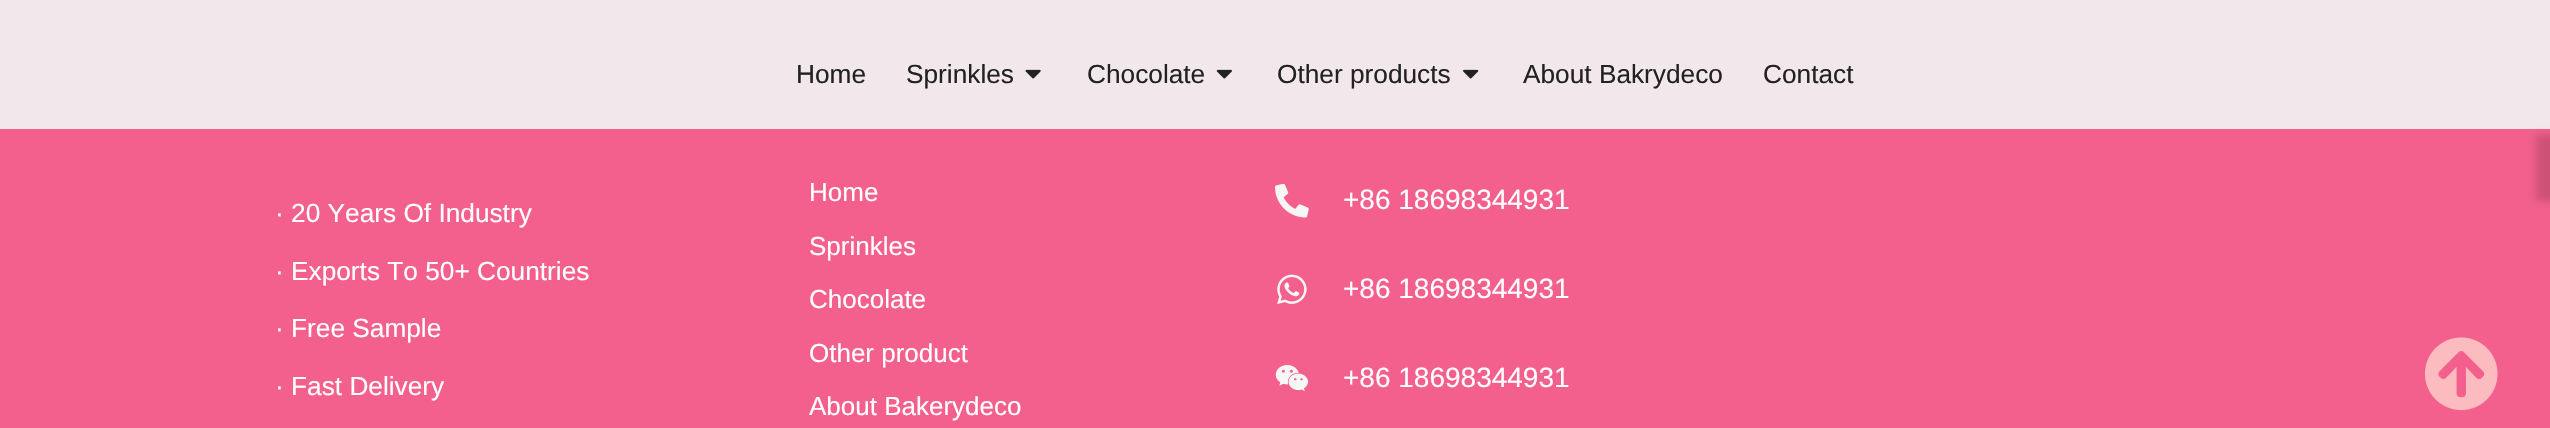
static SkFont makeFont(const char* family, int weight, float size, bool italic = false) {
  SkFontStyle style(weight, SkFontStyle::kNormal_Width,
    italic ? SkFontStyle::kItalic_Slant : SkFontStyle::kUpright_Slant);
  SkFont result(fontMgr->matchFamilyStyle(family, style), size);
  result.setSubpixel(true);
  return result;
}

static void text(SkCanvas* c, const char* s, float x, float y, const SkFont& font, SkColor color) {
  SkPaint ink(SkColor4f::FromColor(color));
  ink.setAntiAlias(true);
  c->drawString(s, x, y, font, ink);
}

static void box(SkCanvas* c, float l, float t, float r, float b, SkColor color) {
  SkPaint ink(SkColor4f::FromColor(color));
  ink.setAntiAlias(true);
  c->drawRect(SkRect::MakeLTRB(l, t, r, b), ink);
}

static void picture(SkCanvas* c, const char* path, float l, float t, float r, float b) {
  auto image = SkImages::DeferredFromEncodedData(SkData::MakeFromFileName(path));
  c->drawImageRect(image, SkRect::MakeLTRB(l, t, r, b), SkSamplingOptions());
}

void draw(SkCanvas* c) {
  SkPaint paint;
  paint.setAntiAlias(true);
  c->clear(0xfff3608d);
  box(c, 0, 0, 2550, 129, 0xebf2f2f2);
  SkFont face1 = makeFont("Liberation Sans", 400, 26.25f);
  text(c, "Home", 796, 83, face1, 0xff222222);
  text(c, "Sprinkles", 906, 83, face1, 0xff222222);
  picture(c, "img_01.png", 1025, 69, 1041, 79);
  text(c, "Chocolate", 1087, 83, face1, 0xff222222);
  picture(c, "img_02.png", 1216, 69, 1232, 79);
  text(c, "Other products", 1277, 83, face1, 0xff222222);
  picture(c, "img_03.png", 1463, 69, 1479, 79);
  text(c, "About Bakrydeco", 1523, 83, face1, 0xff222222);
  text(c, "Contact", 1763, 83, face1, 0xff222222);
  paint.setColor(0x29000000);
  paint.setMaskFilter(SkMaskFilter::MakeBlur(kNormal_SkBlurStyle, 4));
  c->drawRect(SkRect::MakeLTRB(2536, 135, 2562, 201), paint);
  paint.setMaskFilter(nullptr);
  text(c, "· 20 Years Of Industry", 275, 222, face1, 0xffffffff);
  text(c, "· Exports To 50+ Countries", 275, 280, face1, 0xffffffff);
  text(c, "· Free Sample", 275, 337, face1, 0xffffffff);
  text(c, "· Fast Delivery", 275, 395, face1, 0xffffffff);
  SkFont face2 = makeFont("Liberation Sans", 400, 26);
  text(c, "Home", 809, 201, face2, 0xffffffff);
  text(c, "Sprinkles", 809, 255, face2, 0xffffffff);
  text(c, "Chocolate", 809, 308, face2, 0xffffffff);
  text(c, "Other product", 809, 362, face2, 0xffffffff);
  text(c, "About Bakerydeco", 809, 415, face2, 0xffffffff);
  picture(c, "img_04.png", 1275, 184, 1309, 218);
  SkFont face3 = makeFont("Liberation Sans", 400, 28);
  text(c, "+86 18698344931", 1343, 209, face3, 0xffffffff);
  picture(c, "img_05.png", 1277, 274, 1307, 305);
  text(c, "+86 18698344931", 1343, 298, face3, 0xffffffff);
  picture(c, "img_06.png", 1275, 365, 1308, 392);
  text(c, "+86 18698344931", 1343, 387, face3, 0xffffffff);
  picture(c, "img_07.png", 2424, 337, 2498, 411);
}
